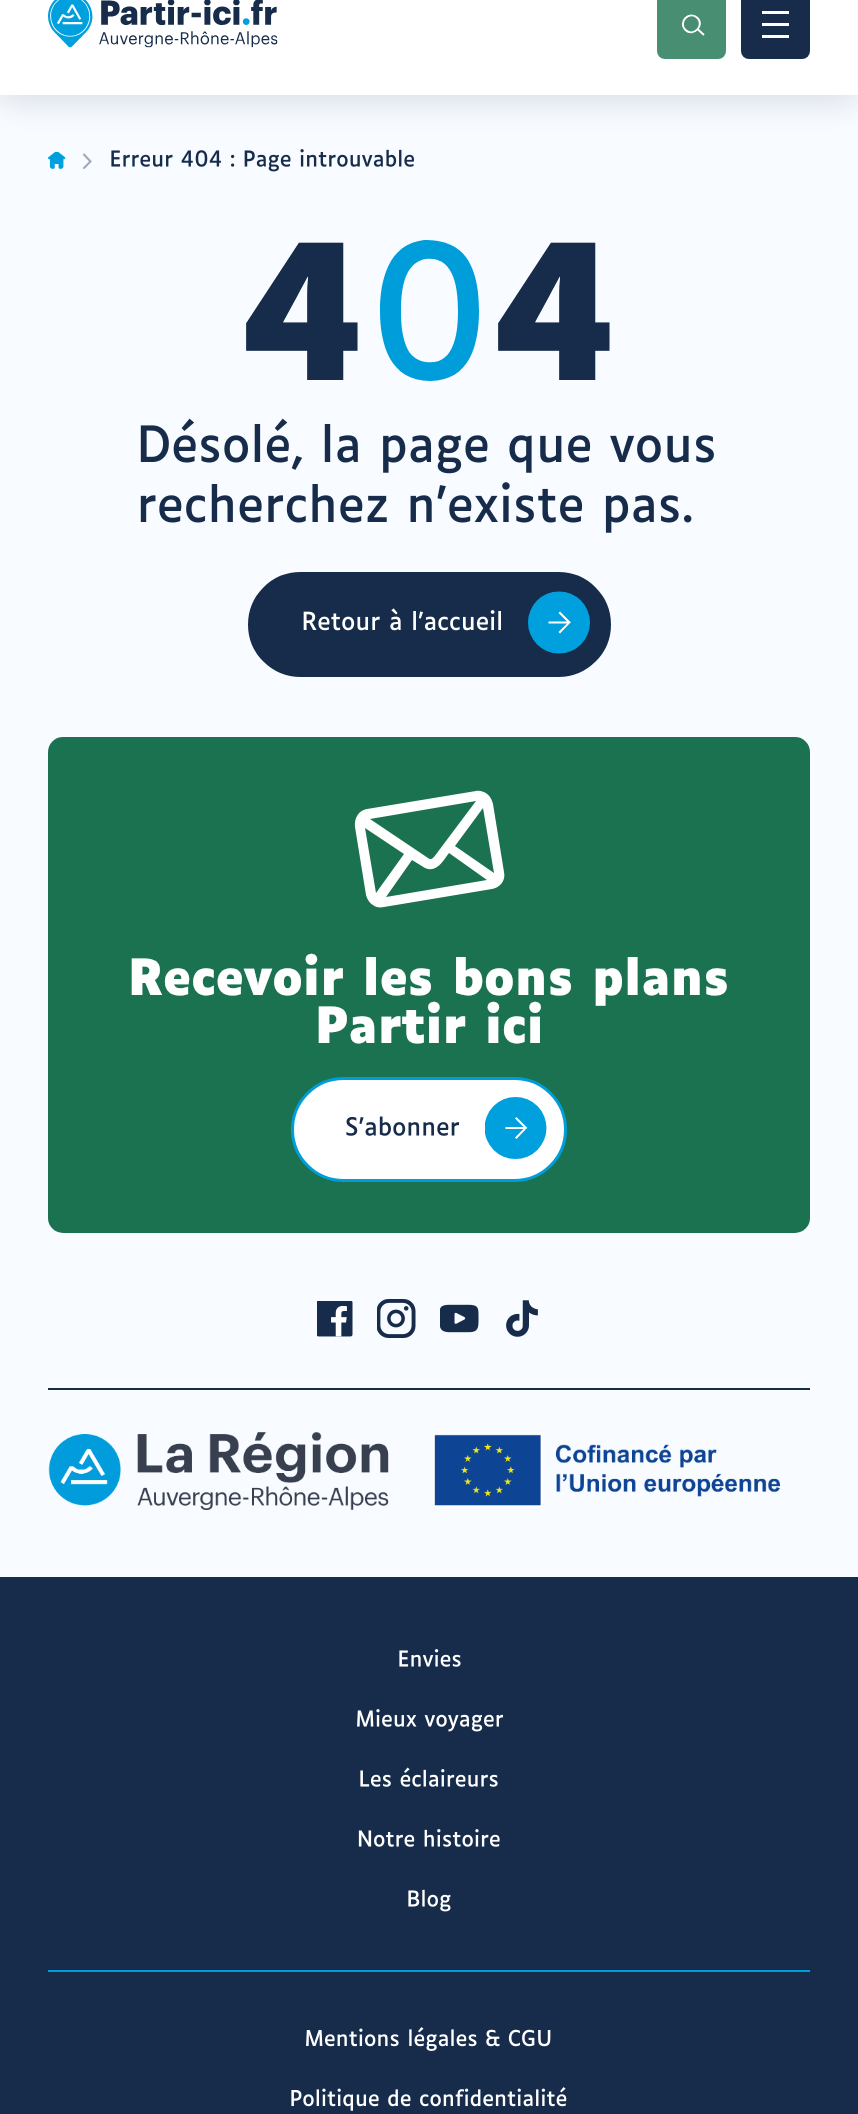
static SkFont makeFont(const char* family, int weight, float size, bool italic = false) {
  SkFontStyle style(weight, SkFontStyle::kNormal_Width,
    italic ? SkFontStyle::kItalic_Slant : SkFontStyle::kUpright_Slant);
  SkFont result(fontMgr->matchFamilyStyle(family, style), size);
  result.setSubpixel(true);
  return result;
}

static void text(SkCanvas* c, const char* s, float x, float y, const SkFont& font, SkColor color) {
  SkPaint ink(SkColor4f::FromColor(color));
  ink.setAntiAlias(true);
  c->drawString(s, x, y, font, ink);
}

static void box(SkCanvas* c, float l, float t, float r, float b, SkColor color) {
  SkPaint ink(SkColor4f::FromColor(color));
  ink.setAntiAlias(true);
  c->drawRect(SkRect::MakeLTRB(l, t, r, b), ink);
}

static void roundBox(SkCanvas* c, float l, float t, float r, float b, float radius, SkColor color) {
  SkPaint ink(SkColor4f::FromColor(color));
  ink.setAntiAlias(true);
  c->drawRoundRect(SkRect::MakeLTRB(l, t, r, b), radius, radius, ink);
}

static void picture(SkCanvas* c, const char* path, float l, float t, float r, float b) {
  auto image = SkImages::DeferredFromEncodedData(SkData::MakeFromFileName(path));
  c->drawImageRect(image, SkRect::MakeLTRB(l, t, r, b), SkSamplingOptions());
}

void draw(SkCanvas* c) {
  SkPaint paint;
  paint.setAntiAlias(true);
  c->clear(0xfff8fbff);
  paint.setColor(0x33162c4a);
  paint.setMaskFilter(SkMaskFilter::MakeBlur(kNormal_SkBlurStyle, 18));
  c->drawRect(SkRect::MakeLTRB(0, -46, 858, 95), paint);
  paint.setMaskFilter(nullptr);
  box(c, 0, 0, 858, 95, 0xffffffff);
  picture(c, "img_01.png", 48, 0, 278, 48);
  roundBox(c, 657, -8, 726, 59, 8, 0xff478e73);
  paint.setStyle(SkPaint::kStroke_Style);
  paint.setStrokeWidth(1.9f);
  paint.setColor(0xffffffff);
  c->drawPath(SkPathBuilder().moveTo(697.5f, 18).cubicTo(705, 25.5f, 693, 37.5f, 685.5f, 30).cubicTo(677.5f, 22, 689.5f, 10, 697.5f, 18).close().moveTo(698, 29.5f).lineTo(704, 35).detach(), paint);
  roundBox(c, 741, -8, 810, 59, 8, 0xff162c4a);
  box(c, 762, 11, 789, 14, 0xffffffff);
  box(c, 762, 23, 789, 26, 0xffffffff);
  box(c, 762, 35, 789, 38, 0xffffffff);
  picture(c, "img_02.png", 48, 152, 66, 169);
  paint.setStrokeWidth(2);
  paint.setStrokeCap(SkPaint::kRound_Cap);
  paint.setColor(0xff9ea8b7);
  c->drawPath(SkPathBuilder().moveTo(84, 168).lineTo(90.5f, 161.5f).lineTo(84, 154.5f).detach(), paint);
  picture(c, "img_03.png", 111, 149, 414, 172);
  SkFont face1 = makeFont("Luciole", 700, 180);
  text(c, "4", 239, 380, face1, 0xff162c4a);
  paint.setStyle(SkPaint::kFill_Style);
  paint.setColor(0xff009ddb);
  c->drawPath(SkPathBuilder().moveTo(479, 311).cubicTo(479, 344, 470, 381, 430, 381).cubicTo(390, 381, 380, 344, 380, 311).cubicTo(380, 281, 388, 244, 424, 240).cubicTo(433, 240, 443, 241, 451, 245).cubicTo(475, 256, 479, 287, 479, 311).close().moveTo(458, 311).cubicTo(458, 290, 455, 256, 426, 259).cubicTo(418, 260, 412, 265, 408, 272).cubicTo(402, 283, 401, 298, 401, 311).cubicTo(401, 324, 402, 338, 408, 350).cubicTo(412, 357, 418, 361, 426, 362).cubicTo(455, 366, 458, 332, 458, 311).close().detach(), paint);
  text(c, "4", 491, 380, face1, 0xff162c4a);
  picture(c, "img_04.png", 140, 418, 714, 474);
  picture(c, "img_05.png", 140, 482, 692, 533);
  paint.setColor(0xff162c4a);
  c->drawRoundRect(SkRect::MakeLTRB(249.5f, 573.5f, 609.5f, 675.5f), 51, 51, paint);
  paint.setStyle(SkPaint::kStroke_Style);
  paint.setStrokeWidth(3);
  paint.setStrokeCap(SkPaint::kButt_Cap);
  c->drawRoundRect(SkRect::MakeLTRB(249.5f, 573.5f, 609.5f, 675.5f), 51, 51, paint);
  picture(c, "img_06.png", 303, 608, 501, 631);
  paint.setStyle(SkPaint::kFill_Style);
  paint.setColor(0xff00a0df);
  c->drawCircle(559, 622.5f, 31, paint);
  paint.setColor(0xffffffff);
  c->drawPath(SkPathBuilder(SkPathFillType::kEvenOdd).moveTo(570, 623).lineTo(571, 622.5f).lineTo(560, 611.5f).lineTo(558.5f, 613).lineTo(567, 621.5f).lineTo(548.5f, 621.5f).lineTo(548.5f, 623.5f).lineTo(567, 623.5f).lineTo(558.5f, 632).lineTo(560, 633.5f).close().detach(), paint);
  roundBox(c, 48, 737, 810, 1233, 15, 0xff1a7251);
  c->drawPath(SkPathBuilder().moveTo(367, 809).cubicTo(359, 810, 354, 818, 355, 827).lineTo(366, 895).cubicTo(368, 903, 375, 909, 384, 907).lineTo(492, 889).cubicTo(500, 888, 506, 880, 504, 872).lineTo(493, 804).cubicTo(491, 795, 484, 790, 476, 791).close().moveTo(370, 819).lineTo(476, 801).lineTo(434, 857).cubicTo(432, 859, 430, 860, 428, 858).close().moveTo(365, 828).lineTo(404, 854).lineTo(376, 893).close().moveTo(483, 808).lineTo(494, 873).lineTo(455, 846).close().moveTo(449, 853).lineTo(487, 880).lineTo(386, 897).lineTo(412, 860).lineTo(425, 868).cubicTo(437, 873, 443, 861, 449, 853).close().detach(), paint);
  SkFont face2 = makeFont("Luciole", 700, 48);
  text(c, "Recevoir les bons plans", 128, 995, face2, 0xffffffff);
  text(c, "Partir ici", 315, 1043, face2, 0xffffffff);
  c->drawRoundRect(SkRect::MakeLTRB(292.5f, 1078.5f, 565.5f, 1180.5f), 51, 51, paint);
  paint.setStyle(SkPaint::kStroke_Style);
  paint.setColor(0xff009ddb);
  c->drawRoundRect(SkRect::MakeLTRB(292.5f, 1078.5f, 565.5f, 1180.5f), 51, 51, paint);
  picture(c, "img_07.png", 346, 1116, 460, 1136);
  c->save();
  c->clipRect(SkRect::MakeLTRB(485, 1097, 548, 1160));
  paint.setStyle(SkPaint::kFill_Style);
  paint.setColor(0xff00a0df);
  c->drawCircle(515.5f, 1128, 31, paint);
  c->restore();
  paint.setColor(0xffffffff);
  c->drawPath(SkPathBuilder(SkPathFillType::kEvenOdd).moveTo(526.5f, 1128.5f).lineTo(527.5f, 1128).lineTo(516.5f, 1117).lineTo(515, 1118.5f).lineTo(523.5f, 1127).lineTo(505.5f, 1127).lineTo(505.5f, 1129).lineTo(523.5f, 1129).lineTo(515, 1137.5f).lineTo(516.5f, 1139).close().detach(), paint);
  picture(c, "img_08.png", 317, 1301, 353, 1337);
  picture(c, "img_09.png", 377, 1299, 416, 1338);
  picture(c, "img_10.png", 440, 1304, 479, 1333);
  picture(c, "img_11.png", 506, 1300, 538, 1337);
  box(c, 48, 1388, 810, 1390, 0xff162c4a);
  picture(c, "img_12.png", 48, 1432, 780, 1510);
  box(c, 0, 1577, 858, 2114, 0xff162c4a);
  picture(c, "img_13.png", 399, 1649, 461, 1667);
  picture(c, "img_14.png", 357, 1709, 503, 1732);
  picture(c, "img_15.png", 360, 1767, 498, 1787);
  picture(c, "img_16.png", 358, 1829, 500, 1847);
  picture(c, "img_17.png", 408, 1889, 451, 1912);
  box(c, 48, 1970, 810, 1972, 0xff009ddb);
  picture(c, "img_18.png", 306, 2027, 551, 2051);
  picture(c, "img_19.png", 291, 2087, 567, 2111);
}
